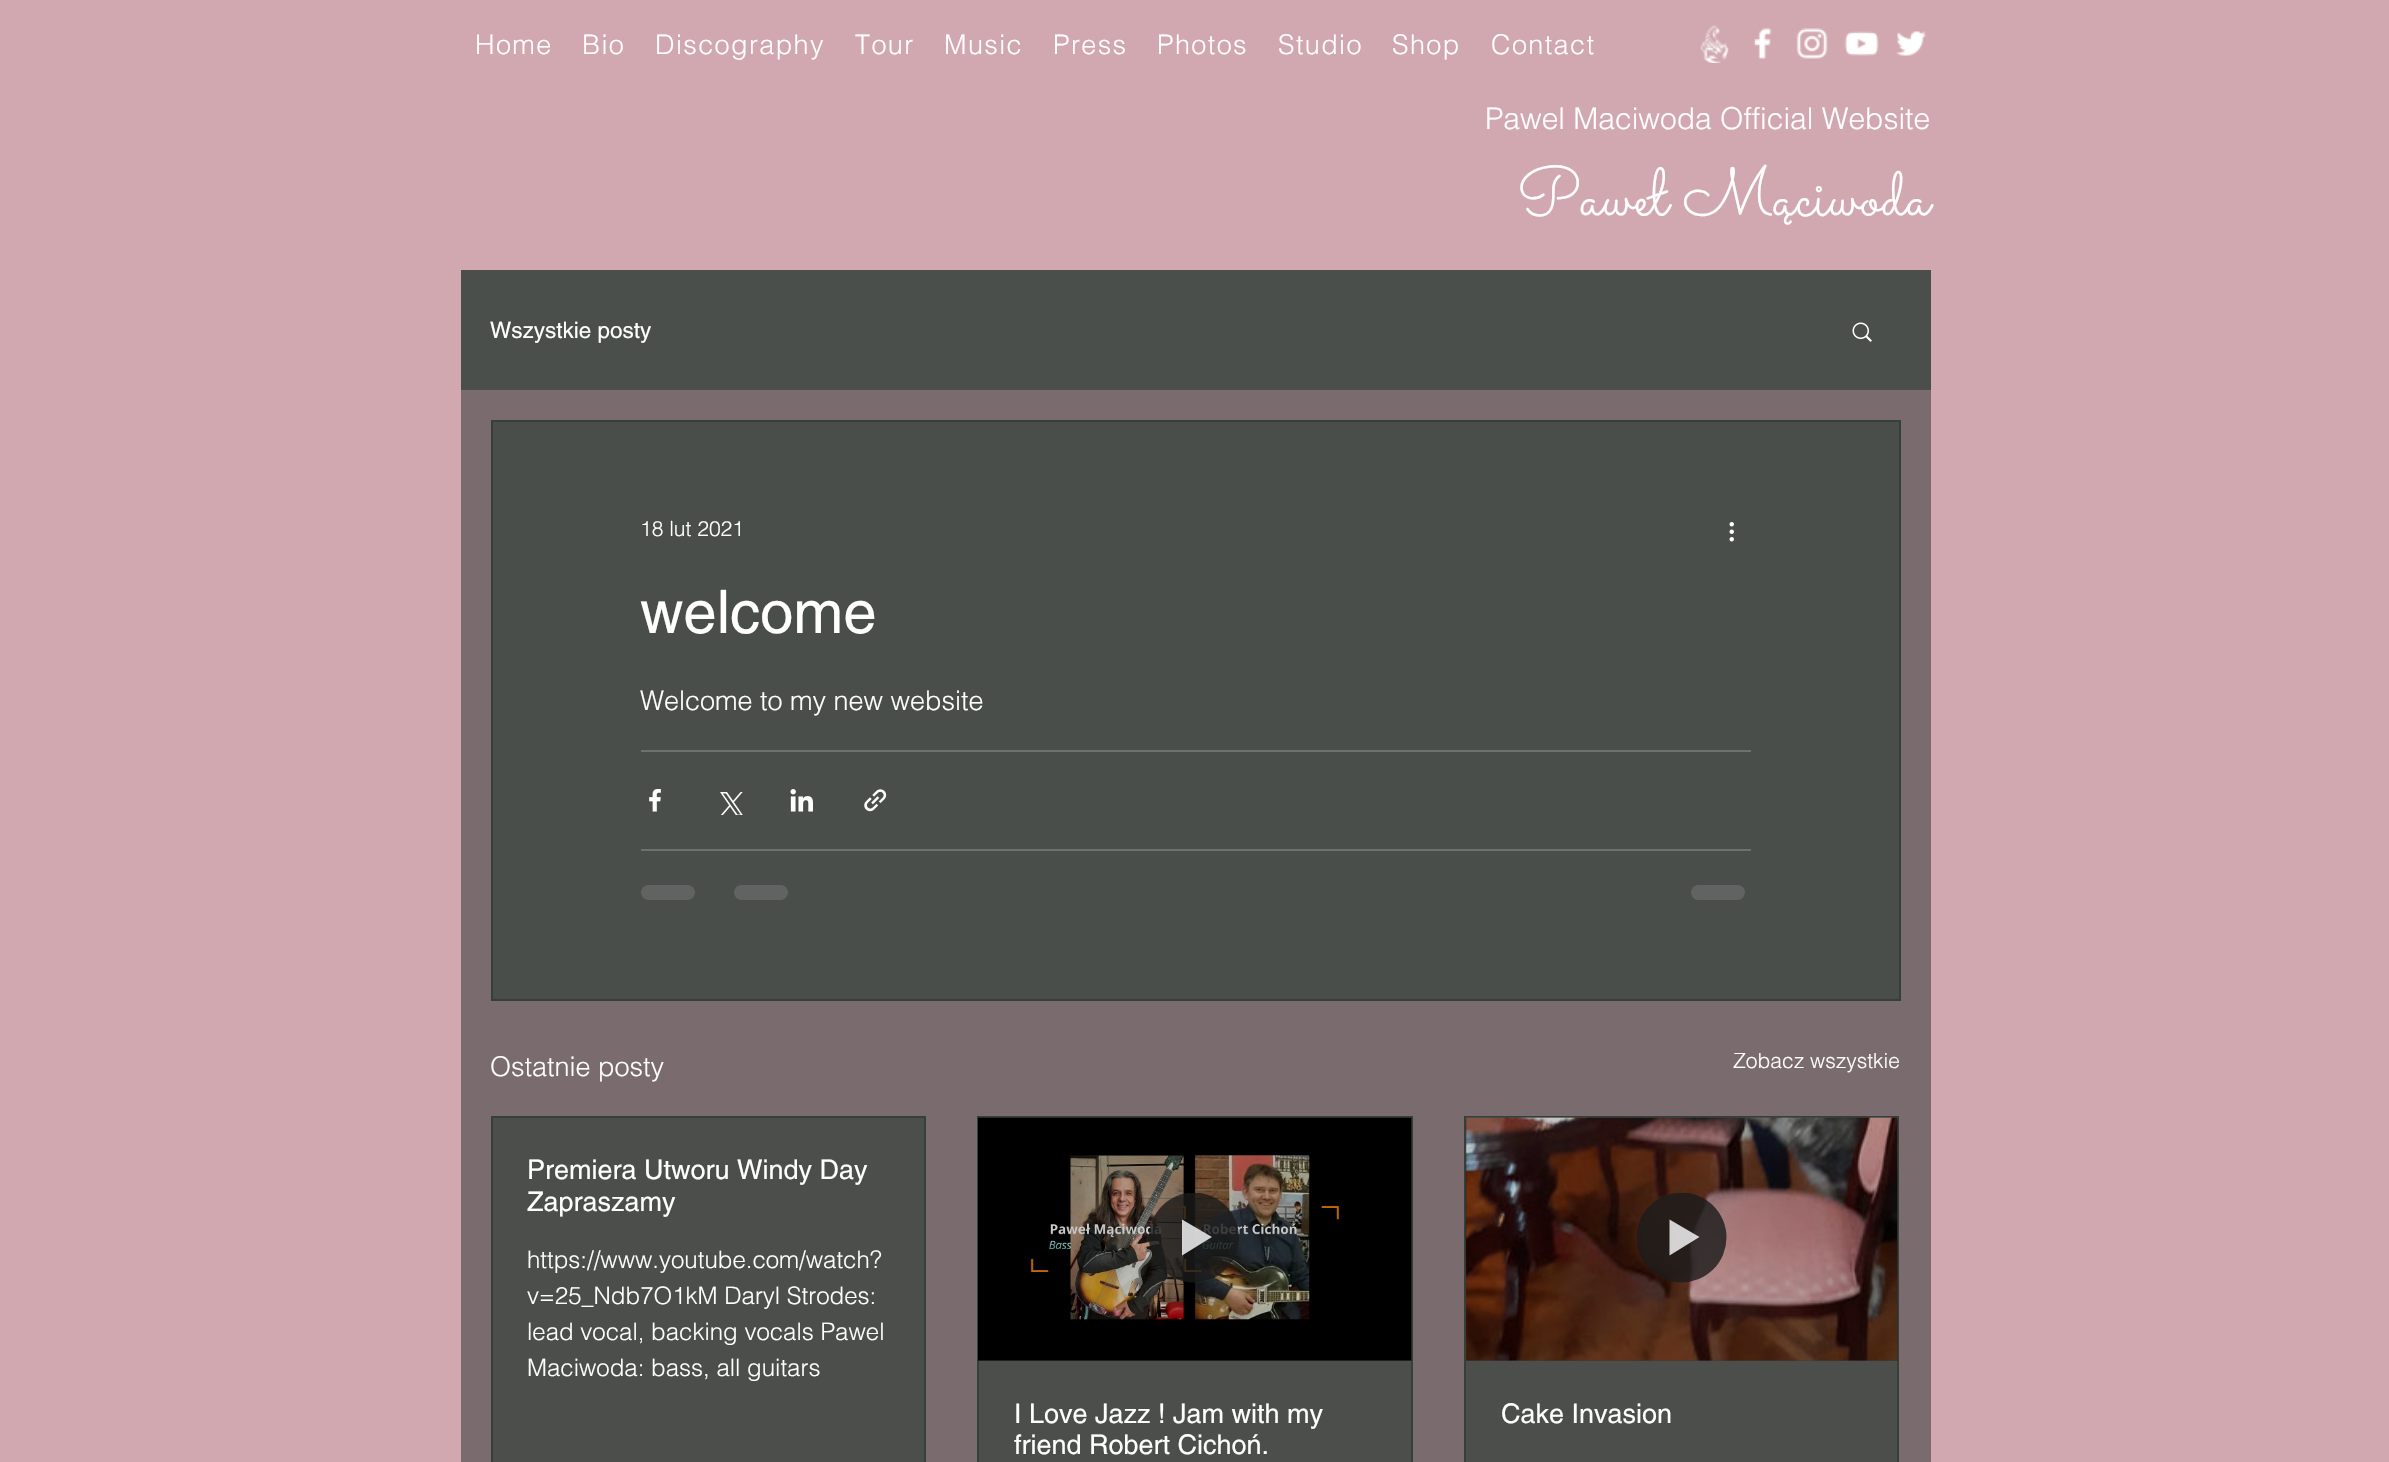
static SkFont makeFont(const char* family, int weight, float size, bool italic = false) {
  SkFontStyle style(weight, SkFontStyle::kNormal_Width,
    italic ? SkFontStyle::kItalic_Slant : SkFontStyle::kUpright_Slant);
  SkFont result(fontMgr->matchFamilyStyle(family, style), size);
  result.setSubpixel(true);
  return result;
}

static void text(SkCanvas* c, const char* s, float x, float y, const SkFont& font, SkColor color) {
  SkPaint ink(SkColor4f::FromColor(color));
  ink.setAntiAlias(true);
  c->drawString(s, x, y, font, ink);
}

static void spacedText(SkCanvas* c, const char* s, float x, float y, const SkFont& font, const SkPaint& ink, float letter, float word) {
  std::vector<SkGlyphID> glyphs(font.countText(s, strlen(s), SkTextEncoding::kUTF8));
  std::vector<float> xs(glyphs.size());
  font.textToGlyphs(s, strlen(s), SkTextEncoding::kUTF8, glyphs);
  font.getXPos(glyphs, xs, x);
  float extra = 0;
  for (size_t i = 0; i < glyphs.size(); i++) {
    xs[i] += extra;
    extra += letter + word * (glyphs[i] == font.unicharToGlyph(' '));
  }
  c->drawTextBlob(SkTextBlob::MakeFromPosHGlyphs(glyphs, xs, y, font), 0, 0, ink);
}

static void box(SkCanvas* c, float l, float t, float r, float b, SkColor color) {
  SkPaint ink(SkColor4f::FromColor(color));
  ink.setAntiAlias(true);
  c->drawRect(SkRect::MakeLTRB(l, t, r, b), ink);
}

static void roundBox(SkCanvas* c, float l, float t, float r, float b, float radius, SkColor color) {
  SkPaint ink(SkColor4f::FromColor(color));
  ink.setAntiAlias(true);
  c->drawRoundRect(SkRect::MakeLTRB(l, t, r, b), radius, radius, ink);
}

static void picture(SkCanvas* c, const char* path, float l, float t, float r, float b) {
  auto image = SkImages::DeferredFromEncodedData(SkData::MakeFromFileName(path));
  c->drawImageRect(image, SkRect::MakeLTRB(l, t, r, b), SkSamplingOptions());
}

void draw(SkCanvas* c) {
  SkPaint paint;
  paint.setAntiAlias(true);
  c->clear(0xffd2a8b0);
  SkFont face1 = makeFont("helvetica", 300, 27);
  paint.setColor(0xffffffff);
  spacedText(c, "Home", 475, 54, face1, paint, 1.4f, 0);
  spacedText(c, "Bio", 582, 54, face1, paint, 1.4f, 0);
  spacedText(c, "Discography", 655, 54, face1, paint, 1.4f, 0);
  spacedText(c, "Tour", 855, 54, face1, paint, 1.4f, 0);
  spacedText(c, "Music", 944, 54, face1, paint, 1.4f, 0);
  spacedText(c, "Press", 1053, 54, face1, paint, 1.4f, 0);
  spacedText(c, "Photos", 1157, 54, face1, paint, 1.4f, 0);
  spacedText(c, "Studio", 1278, 54, face1, paint, 1.4f, 0);
  spacedText(c, "Shop", 1392, 54, face1, paint, 1.4f, 0);
  spacedText(c, "Contact", 1491, 54, face1, paint, 1.4f, 0);
  picture(c, "img_01.png", 1700, 25, 1729, 63);
  picture(c, "img_02.png", 1753, 28, 1772, 59);
  picture(c, "img_03.png", 1796, 28, 1828, 59);
  picture(c, "img_04.png", 1844, 31, 1879, 56);
  picture(c, "img_05.png", 1896, 31, 1926, 56);
  SkFont face2 = makeFont("helvetica", 300, 30);
  text(c, "Pawel Maciwoda Official Website", 1485, 129, face2, 0xffffffff);
  SkFont face3 = makeFont("Sacramento", 400, 67.5f);
  text(c, "Paweł Mąciwoda", 1517, 215, face3, 0xffffffff);
  box(c, 461, 390, 1931, 1462, 0xff796b6e);
  box(c, 461, 270, 1931, 390, 0xff4b4f4c);
  SkFont face4 = makeFont("helvetica", 400, 22.5f);
  text(c, "Wszystkie posty", 490, 338, face4, 0xffffffff);
  picture(c, "img_06.png", 1852, 322, 1872, 342);
  paint.setColor(0xff4a4e4b);
  c->drawRect(SkRect::MakeLTRB(492, 421, 1900, 1000), paint);
  paint.setStyle(SkPaint::kStroke_Style);
  paint.setStrokeWidth(2);
  paint.setColor(0xff34403a);
  c->drawRect(SkRect::MakeLTRB(492, 421, 1900, 1000), paint);
  SkFont face5 = makeFont("helvetica", 300, 21);
  text(c, "18 lut 2021", 640, 536, face5, 0xffffffff);
  picture(c, "img_07.png", 1729, 522, 1734, 542);
  SkFont face6 = makeFont("helvetica", 400, 60);
  text(c, "welcome", 640, 633, face6, 0xffffffff);
  text(c, "Welcome to my new website", 640, 710, face1, 0xffffffff);
  box(c, 641, 750, 1751, 752, 0xff6e716f);
  picture(c, "img_08.png", 649, 789, 661, 812);
  picture(c, "img_09.png", 720, 792, 743, 815);
  picture(c, "img_10.png", 790, 789, 813, 812);
  picture(c, "img_11.png", 864, 789, 887, 812);
  box(c, 641, 849, 1751, 851, 0xff6e716f);
  roundBox(c, 641, 885, 695, 900, 7.5f, 0xff606361);
  roundBox(c, 734, 885, 788, 900, 7.5f, 0xff606361);
  roundBox(c, 1691, 885, 1745, 900, 7.5f, 0xff606361);
  text(c, "Ostatnie posty", 490, 1076, face1, 0xffffffff);
  text(c, "Zobacz wszystkie", 1733, 1068, face5, 0xffffffff);
  paint.setStyle(SkPaint::kFill_Style);
  paint.setColor(0xff4b4e4b);
  c->drawRect(SkRect::MakeLTRB(492, 1117, 925, 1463), paint);
  paint.setStyle(SkPaint::kStroke_Style);
  paint.setColor(0xff35403a);
  c->drawRect(SkRect::MakeLTRB(492, 1117, 925, 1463), paint);
  SkFont face7 = makeFont("helvetica", 400, 27);
  text(c, "Premiera Utworu Windy Day", 527, 1179, face7, 0xffffffff);
  text(c, "Zapraszamy", 527, 1211, face7, 0xffffffff);
  SkFont face8 = makeFont("helvetica", 300, 24);
  text(c, "https://www.youtube.com/watch?", 527, 1268, face8, 0xffffffff);
  text(c, "v=25_Ndb7O1kM Daryl Strodes:", 527, 1304, face8, 0xffffffff);
  text(c, "lead vocal, backing vocals Pawel", 527, 1340, face8, 0xffffffff);
  text(c, "Maciwoda: bass, all guitars", 527, 1376, face8, 0xffffffff);
  box(c, 979, 1360, 1411, 1462, 0xff4b4e4b);
  c->drawRect(SkRect::MakeLTRB(978, 1117, 1412, 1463), paint);
  picture(c, "img_12.png", 978, 1117, 1412, 1361);
  box(c, 978, 1118, 1412, 1361, 0x33000000);
  c->save();
  c->clipRect(SkRect::MakeLTRB(1149, 1193, 1239, 1283));
  paint.setStyle(SkPaint::kFill_Style);
  paint.setColor(0xcc1a1a1a);
  c->drawCircle(1194, 1237.5f, 45, paint);
  c->restore();
  paint.setColor(0xccffffff);
  c->drawPath(SkPathBuilder().moveTo(1182, 1219.5f).lineTo(1182, 1255.5f).lineTo(1212, 1237).close().detach(), paint);
  text(c, "I Love Jazz ! Jam with my", 1014, 1423, face7, 0xffffffff);
  text(c, "friend Robert Cichoń.", 1014, 1454, face7, 0xffffffff);
  box(c, 1466, 1360, 1897, 1462, 0xff4b4e4b);
  paint.setStyle(SkPaint::kStroke_Style);
  paint.setColor(0xff35403a);
  c->drawRect(SkRect::MakeLTRB(1465, 1117, 1898, 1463), paint);
  picture(c, "img_13.png", 1465, 1117, 1898, 1361);
  box(c, 1466, 1118, 1898, 1361, 0x33000000);
  c->save();
  c->clipRect(SkRect::MakeLTRB(1637, 1193, 1727, 1283));
  paint.setStyle(SkPaint::kFill_Style);
  paint.setColor(0xcc1a1a1a);
  c->drawCircle(1681.5f, 1237.5f, 45, paint);
  c->restore();
  paint.setColor(0xccffffff);
  c->drawPath(SkPathBuilder().moveTo(1669.5f, 1219.5f).lineTo(1669.5f, 1255.5f).lineTo(1699.5f, 1237).close().detach(), paint);
  text(c, "Cake Invasion", 1501, 1423, face7, 0xffffffff);
}
